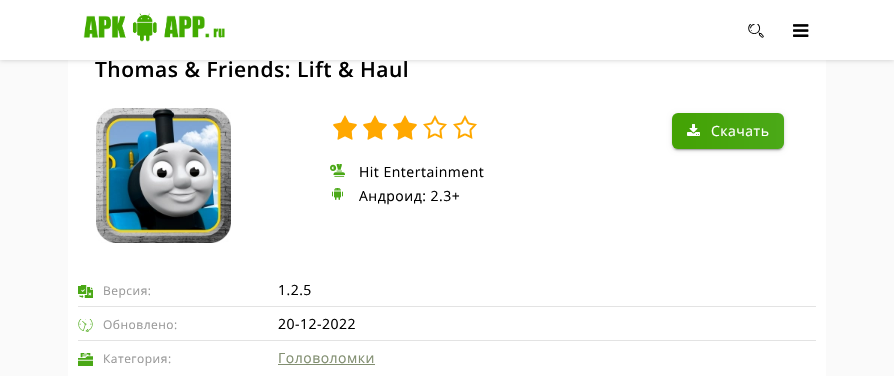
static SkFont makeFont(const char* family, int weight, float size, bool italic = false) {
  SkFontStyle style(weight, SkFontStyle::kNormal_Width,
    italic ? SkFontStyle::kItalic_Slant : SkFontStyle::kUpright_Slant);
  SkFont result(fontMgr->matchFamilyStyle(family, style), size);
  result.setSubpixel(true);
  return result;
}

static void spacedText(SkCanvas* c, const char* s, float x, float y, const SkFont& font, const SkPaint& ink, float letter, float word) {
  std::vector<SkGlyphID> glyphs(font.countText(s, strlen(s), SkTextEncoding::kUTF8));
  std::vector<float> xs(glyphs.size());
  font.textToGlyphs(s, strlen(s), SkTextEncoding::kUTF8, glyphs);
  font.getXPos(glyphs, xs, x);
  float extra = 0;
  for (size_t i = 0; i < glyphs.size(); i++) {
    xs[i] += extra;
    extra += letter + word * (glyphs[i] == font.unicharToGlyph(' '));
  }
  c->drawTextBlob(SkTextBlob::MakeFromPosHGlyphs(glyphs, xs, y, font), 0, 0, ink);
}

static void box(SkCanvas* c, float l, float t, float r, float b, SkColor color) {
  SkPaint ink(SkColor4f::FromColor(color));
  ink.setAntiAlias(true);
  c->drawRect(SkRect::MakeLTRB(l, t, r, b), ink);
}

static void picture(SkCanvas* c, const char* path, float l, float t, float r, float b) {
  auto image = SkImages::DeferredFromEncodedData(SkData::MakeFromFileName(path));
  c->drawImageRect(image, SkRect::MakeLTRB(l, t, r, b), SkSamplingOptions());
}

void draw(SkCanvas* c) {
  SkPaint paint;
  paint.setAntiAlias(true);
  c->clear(0xfffafafa);
  box(c, 68, 60, 826, 376, 0xffffffff);
  paint.setColor(0x33000000);
  paint.setMaskFilter(SkMaskFilter::MakeBlur(kNormal_SkBlurStyle, 2.5f));
  c->drawRect(SkRect::MakeLTRB(0, 0, 894, 60), paint);
  paint.setMaskFilter(nullptr);
  box(c, 0, 0, 894, 60, 0xffffffff);
  picture(c, "img_01.png", 83, 13, 225, 42);
  picture(c, "img_02.png", 748, 24, 764, 38);
  picture(c, "img_03.png", 793, 24, 809, 37);
  SkFont face1 = makeFont("Open Sans", 600, 21);
  paint.setColor(0xff000000);
  spacedText(c, "Thomas & Friends: Lift & Haul", 95, 77, face1, paint, 0.5f, 0);
  picture(c, "img_04.png", 96, 108, 231, 243);
  paint.setColor(0x1c000000);
  paint.setMaskFilter(SkMaskFilter::MakeBlur(kNormal_SkBlurStyle, 2.5f));
  c->drawRoundRect(SkRect::MakeLTRB(672, 114, 784, 150), 6, 6, paint);
  paint.setMaskFilter(nullptr);
  paint.setColor(0x1f000000);
  paint.setMaskFilter(SkMaskFilter::MakeBlur(kNormal_SkBlurStyle, 1));
  c->drawRoundRect(SkRect::MakeLTRB(672, 115, 784, 151), 6, 6, paint);
  paint.setMaskFilter(nullptr);
  paint.setColor(0x33000000);
  paint.setMaskFilter(SkMaskFilter::MakeBlur(kNormal_SkBlurStyle, 0.5f));
  c->drawRoundRect(SkRect::MakeLTRB(674, 118, 782, 150), 4, 4, paint);
  paint.setMaskFilter(nullptr);
  {
    const SkColor colors[] = {0xff43a203, 0xff4ba918};
    const float stops[] = {0, 1};
    const SkPoint ends[] = {{672, 131}, {784, 131}};
    paint.setShader(SkGradientShader::MakeLinear(ends, colors, stops, 2, SkTileMode::kClamp));
    paint.setAlpha(255);
  }
  c->drawRoundRect(SkRect::MakeLTRB(672, 113, 784, 149), 6, 6, paint);
  picture(c, "img_05.png", 687, 124, 700, 136);
  SkFont face2 = makeFont("Open Sans", 400, 14);
  paint.setShader(nullptr);
  paint.setColor(0xffffffff);
  spacedText(c, "Скачать", 711, 136, face2, paint, 0.5f, 0);
  picture(c, "img_06.png", 333, 115, 477, 139);
  picture(c, "img_07.png", 333, 116, 417, 140);
  picture(c, "img_08.png", 330, 164, 345, 177);
  paint.setColor(0xff000000);
  spacedText(c, "Hit Entertainment", 359, 177, face2, paint, 0.5f, 0);
  picture(c, "img_09.png", 332, 188, 343, 200);
  spacedText(c, "Андроид: 2.3+", 359, 201, face2, paint, 0.5f, 0);
  box(c, 78, 306, 816, 307, 0xffe3e3e3);
  picture(c, "img_10.png", 78, 285, 93, 298);
  SkFont face3 = makeFont("Open Sans", 400, 12);
  paint.setColor(0xff999999);
  spacedText(c, "Версия:", 103, 295, face3, paint, 0.5f, 0);
  paint.setColor(0xff000000);
  spacedText(c, "1.2.5", 278, 295, face2, paint, 0.5f, 0);
  box(c, 78, 340, 816, 341, 0xffe3e3e3);
  picture(c, "img_11.png", 78, 319, 93, 332);
  paint.setColor(0xff999999);
  spacedText(c, "Обновлено:", 103, 329, face3, paint, 0.5f, 0);
  paint.setColor(0xff000000);
  spacedText(c, "20-12-2022", 278, 329, face2, paint, 0.5f, 0);
  picture(c, "img_12.png", 78, 353, 93, 366);
  paint.setColor(0xff999999);
  spacedText(c, "Категория:", 103, 363, face3, paint, 0.5f, 0);
  paint.setColor(0xff828f71);
  spacedText(c, "Головоломки", 278, 363, face2, paint, 0.5f, 0);
  box(c, 278, 364, 375, 365, 0xff828f71);
}
